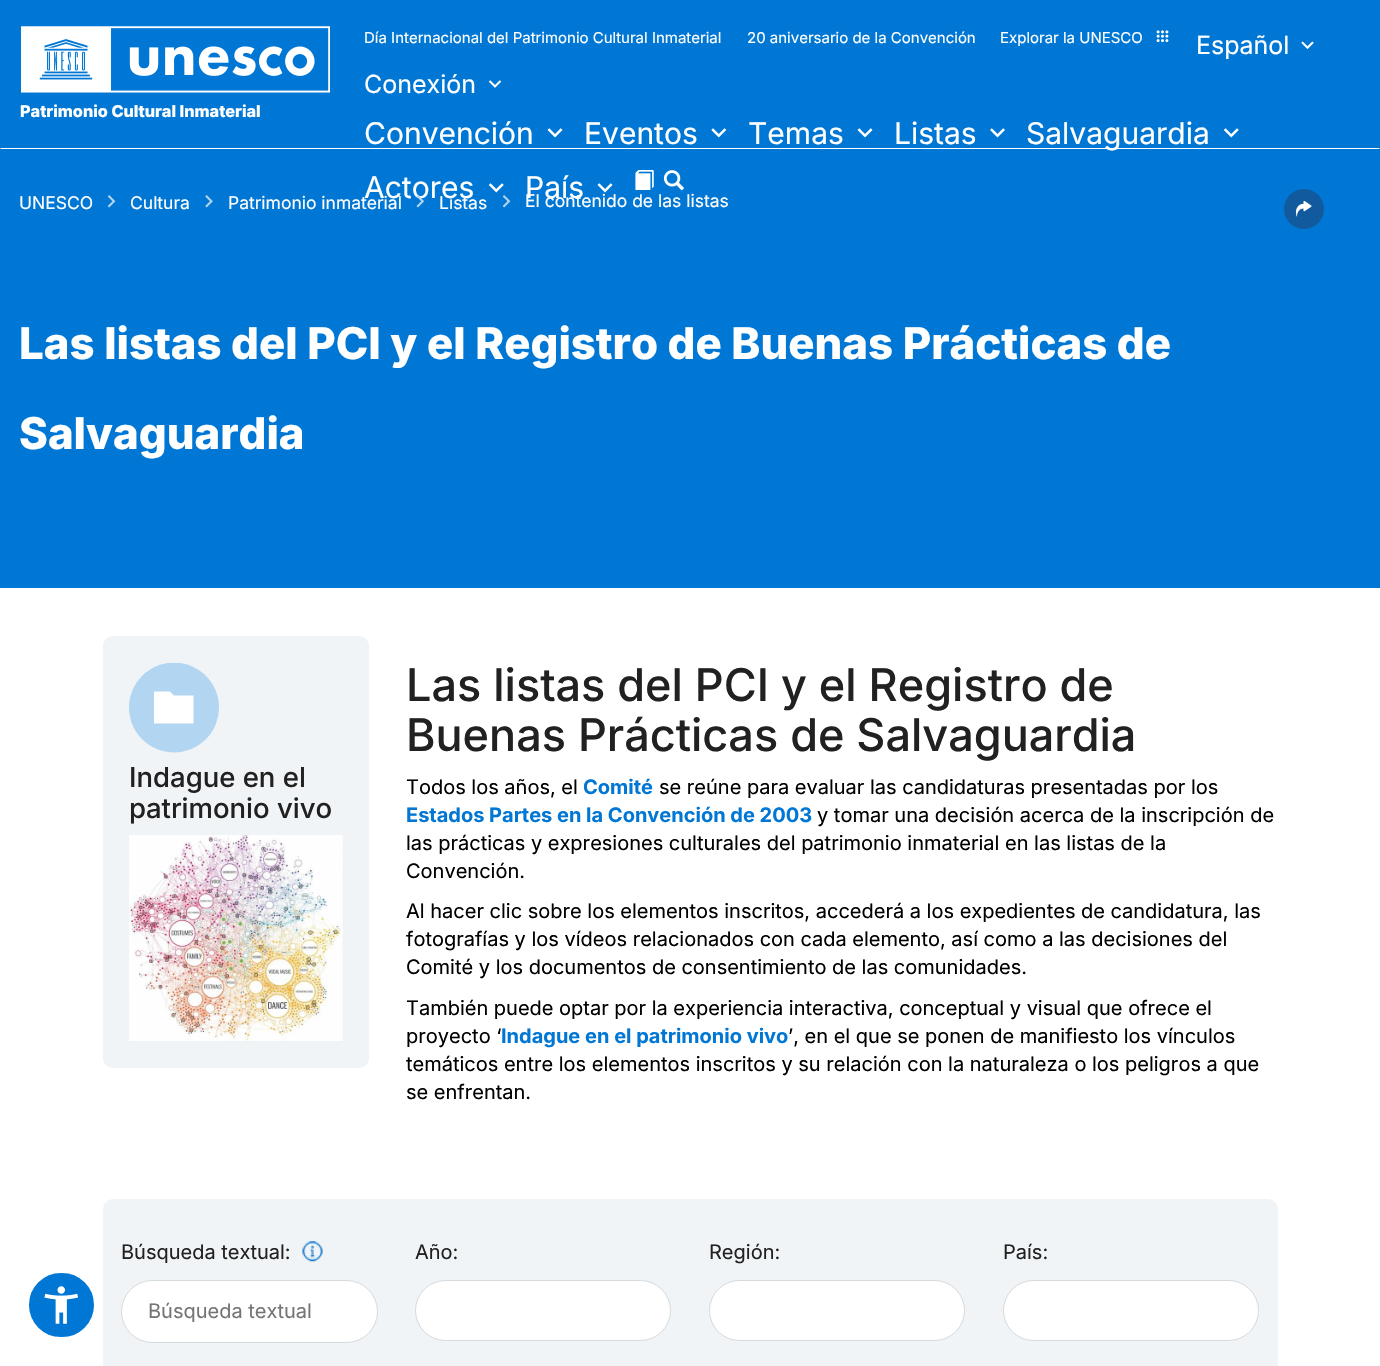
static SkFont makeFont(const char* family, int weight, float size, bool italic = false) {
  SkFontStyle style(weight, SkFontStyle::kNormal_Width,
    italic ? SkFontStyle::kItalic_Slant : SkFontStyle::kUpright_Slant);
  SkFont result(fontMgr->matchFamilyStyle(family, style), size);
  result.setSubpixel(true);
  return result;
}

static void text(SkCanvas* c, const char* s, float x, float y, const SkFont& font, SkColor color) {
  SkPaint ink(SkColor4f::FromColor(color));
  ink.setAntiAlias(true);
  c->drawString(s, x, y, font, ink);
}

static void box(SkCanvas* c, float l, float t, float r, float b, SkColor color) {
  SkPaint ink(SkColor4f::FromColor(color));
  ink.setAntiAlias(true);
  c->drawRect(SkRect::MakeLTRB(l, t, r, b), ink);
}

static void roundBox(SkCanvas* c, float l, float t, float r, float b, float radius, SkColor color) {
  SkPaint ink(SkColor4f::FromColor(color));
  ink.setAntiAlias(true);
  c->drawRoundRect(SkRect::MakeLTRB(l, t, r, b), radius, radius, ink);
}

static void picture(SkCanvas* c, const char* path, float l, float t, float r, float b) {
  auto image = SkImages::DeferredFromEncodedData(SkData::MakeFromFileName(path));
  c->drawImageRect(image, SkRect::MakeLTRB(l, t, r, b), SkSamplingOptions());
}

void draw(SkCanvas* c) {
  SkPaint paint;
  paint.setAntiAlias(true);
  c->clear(0xffffffff);
  box(c, 0, 0, 1380, 588, 0xff0077d4);
  paint.setColor(0xffffffff);
  c->drawPath(SkPathBuilder().moveTo(1380, 149).lineTo(0, 149).lineTo(1, 148).lineTo(1379, 148).close().detach(), paint);
  picture(c, "img_01.png", 21, 26, 330, 93);
  SkFont face1 = makeFont("Inter", 800, 16.25f);
  text(c, "Patrimonio Cultural Inmaterial", 20, 117, face1, 0xffffffff);
  SkFont face2 = makeFont("Inter", 400, 15);
  text(c, "Día Internacional del Patrimonio Cultural Inmaterial", 364, 43, face2, 0xffffffff);
  text(c, "20 aniversario de la Convención", 747, 43, face2, 0xffffffff);
  text(c, "Explorar la UNESCO", 1000, 43, face2, 0xffffffff);
  picture(c, "img_02.png", 1156, 30, 1169, 43);
  SkFont face3 = makeFont("Inter", 400, 25);
  text(c, "Español", 1196, 54, face3, 0xffffffff);
  picture(c, "img_03.png", 1301, 41, 1314, 49);
  text(c, "Conexión", 364, 93, face3, 0xffffffff);
  picture(c, "img_04.png", 488, 80, 502, 88);
  SkFont face4 = makeFont("Inter", 400, 30);
  text(c, "Convención", 364, 144, face4, 0xffffffff);
  picture(c, "img_05.png", 547, 128, 563, 138);
  text(c, "Eventos", 584, 144, face4, 0xffffffff);
  picture(c, "img_06.png", 711, 128, 727, 138);
  text(c, "Temas", 748, 144, face4, 0xffffffff);
  picture(c, "img_05.png", 857, 128, 873, 138);
  text(c, "Listas", 894, 144, face4, 0xffffffff);
  picture(c, "img_07.png", 990, 128, 1005, 138);
  text(c, "Salvaguardia", 1026, 144, face4, 0xffffffff);
  picture(c, "img_08.png", 1223, 128, 1239, 138);
  text(c, "Actores", 364, 198, face4, 0xffffffff);
  picture(c, "img_08.png", 488, 183, 504, 193);
  text(c, "País", 525, 198, face4, 0xffffffff);
  picture(c, "img_05.png", 597, 183, 613, 193);
  picture(c, "img_09.png", 635, 170, 654, 190);
  picture(c, "img_10.png", 663, 170, 684, 191);
  SkFont face5 = makeFont("Inter", 400, 17.5f);
  text(c, "UNESCO", 19, 209, face5, 0xffffffff);
  picture(c, "img_11.png", 107, 195, 116, 208);
  text(c, "Cultura", 130, 209, face5, 0xffffffff);
  picture(c, "img_12.png", 205, 195, 213, 208);
  text(c, "Patrimonio inmaterial", 228, 209, face5, 0xffffffff);
  picture(c, "img_13.png", 416, 195, 425, 208);
  text(c, "Listas", 439, 209, face5, 0xffffffff);
  picture(c, "img_11.png", 502, 195, 511, 208);
  text(c, "El contenido de las listas", 525, 207, face5, 0xffffffff);
  picture(c, "img_14.png", 1284, 189, 1324, 229);
  SkFont face6 = makeFont("Inter", 800, 43.75f);
  text(c, "Las listas del PCI y el Registro de Buenas Prácticas de", 19, 359, face6, 0xffffffff);
  text(c, "Salvaguardia", 19, 449, face6, 0xffffffff);
  paint.setColor(0xff0077d4);
  c->drawRoundRect(SkRect::MakeLTRB(27, 1271, 96, 1339), 34, 34, paint);
  paint.setStyle(SkPaint::kStroke_Style);
  paint.setStrokeWidth(4);
  paint.setColor(0xffffffff);
  c->drawRoundRect(SkRect::MakeLTRB(27, 1271, 96, 1339), 34, 34, paint);
  picture(c, "img_15.png", 44, 1286, 79, 1324);
  roundBox(c, 103, 636, 369, 1068, 10, 0xfff1f4f6);
  c->save();
  c->clipRect(SkRect::MakeLTRB(129, 663, 219, 753));
  paint.setStyle(SkPaint::kFill_Style);
  paint.setColor(0xffb2d6f2);
  c->drawCircle(174, 707.5f, 45, paint);
  c->restore();
  paint.setColor(0xffffffff);
  c->drawPath(SkPathBuilder().moveTo(170, 691.5f).lineTo(154, 691.5f).lineTo(154, 723.5f).lineTo(193.5f, 723.5f).lineTo(193.5f, 695.5f).lineTo(174, 695.5f).close().detach(), paint);
  SkFont face7 = makeFont("Inter", 500, 27.5f);
  text(c, "Indague en el", 129, 787, face7, 0xff212121);
  text(c, "patrimonio vivo", 129, 818, face7, 0xff212121);
  picture(c, "img_16.png", 129, 835, 343, 1041);
  SkFont face8 = makeFont("Inter", 500, 45);
  text(c, "Las listas del PCI y el Registro de", 406, 701, face8, 0xff212121);
  text(c, "Buenas Prácticas de Salvaguardia", 406, 751, face8, 0xff212121);
  SkFont face9 = makeFont("Inter", 400, 20);
  text(c, "Todos los años, el", 406, 794, face9, 0xff000000);
  SkFont face10 = makeFont("Inter", 700, 20);
  text(c, "Comité", 583, 794, face10, 0xff0077d4);
  text(c, "se reúne para evaluar las candidaturas presentadas por los", 659, 794, face9, 0xff000000);
  text(c, "Estados Partes en la Convención de 2003", 406, 822, face10, 0xff0077d4);
  text(c, "y tomar una decisión acerca de la inscripción de", 817, 822, face9, 0xff000000);
  text(c, "las prácticas y expresiones culturales del patrimonio inmaterial en las listas de la", 406, 850, face9, 0xff000000);
  text(c, "Convención.", 406, 878, face9, 0xff000000);
  text(c, "Al hacer clic sobre los elementos inscritos, accederá a los expedientes de candidatura, las", 406, 918, face9, 0xff000000);
  text(c, "fotografías y los vídeos relacionados con cada elemento, así como a las decisiones del", 406, 946, face9, 0xff000000);
  text(c, "Comité y los documentos de consentimiento de las comunidades.", 406, 974, face9, 0xff000000);
  text(c, "También puede optar por la experiencia interactiva, conceptual y visual que ofrece el", 406, 1015, face9, 0xff000000);
  text(c, "proyecto ‘", 406, 1043, face9, 0xff000000);
  text(c, "Indague en el patrimonio vivo", 501, 1043, face10, 0xff0077d4);
  text(c, "’, en el que se ponen de manifiesto los vínculos", 788, 1043, face9, 0xff000000);
  text(c, "temáticos entre los elementos inscritos y su relación con la naturaleza o los peligros a que", 406, 1071, face9, 0xff000000);
  text(c, "se enfrentan.", 406, 1099, face9, 0xff000000);
  roundBox(c, 103, 1199, 1278, 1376, 10, 0xfff1f4f6);
  text(c, "Búsqueda textual:", 121, 1259, face9, 0xff212121);
  picture(c, "img_17.png", 302, 1241, 323, 1262);
  c->drawRoundRect(SkRect::MakeLTRB(121.5f, 1280.5f, 377.5f, 1342.5f), 31, 31, paint);
  paint.setStyle(SkPaint::kStroke_Style);
  paint.setStrokeWidth(1);
  paint.setColor(0xffd5dadd);
  c->drawRoundRect(SkRect::MakeLTRB(121.5f, 1280.5f, 377.5f, 1342.5f), 31, 31, paint);
  text(c, "Búsqueda textual", 148, 1318, face9, 0xff757575);
  text(c, "Año:", 415, 1259, face9, 0xff212121);
  paint.setStyle(SkPaint::kFill_Style);
  paint.setColor(0xffffffff);
  c->drawCircle(415.5f, 1273.5f, 0.5f, paint);
  c->drawRoundRect(SkRect::MakeLTRB(415.5f, 1280.5f, 670.5f, 1340.5f), 30, 30, paint);
  paint.setStyle(SkPaint::kStroke_Style);
  paint.setColor(0xffd5dadd);
  c->drawRoundRect(SkRect::MakeLTRB(415.5f, 1280.5f, 670.5f, 1340.5f), 30, 30, paint);
  text(c, "Región:", 709, 1259, face9, 0xff212121);
  paint.setStyle(SkPaint::kFill_Style);
  paint.setColor(0xffffffff);
  c->drawCircle(709.5f, 1273.5f, 0.5f, paint);
  c->drawRoundRect(SkRect::MakeLTRB(709.5f, 1280.5f, 964.5f, 1340.5f), 30, 30, paint);
  paint.setStyle(SkPaint::kStroke_Style);
  paint.setColor(0xffd5dadd);
  c->drawRoundRect(SkRect::MakeLTRB(709.5f, 1280.5f, 964.5f, 1340.5f), 30, 30, paint);
  text(c, "País:", 1003, 1259, face9, 0xff212121);
  paint.setStyle(SkPaint::kFill_Style);
  paint.setColor(0xffffffff);
  c->drawCircle(1003.5f, 1273.5f, 0.5f, paint);
  c->drawRoundRect(SkRect::MakeLTRB(1003.5f, 1280.5f, 1258.5f, 1340.5f), 30, 30, paint);
  paint.setStyle(SkPaint::kStroke_Style);
  paint.setColor(0xffd5dadd);
  c->drawRoundRect(SkRect::MakeLTRB(1003.5f, 1280.5f, 1258.5f, 1340.5f), 30, 30, paint);
}
